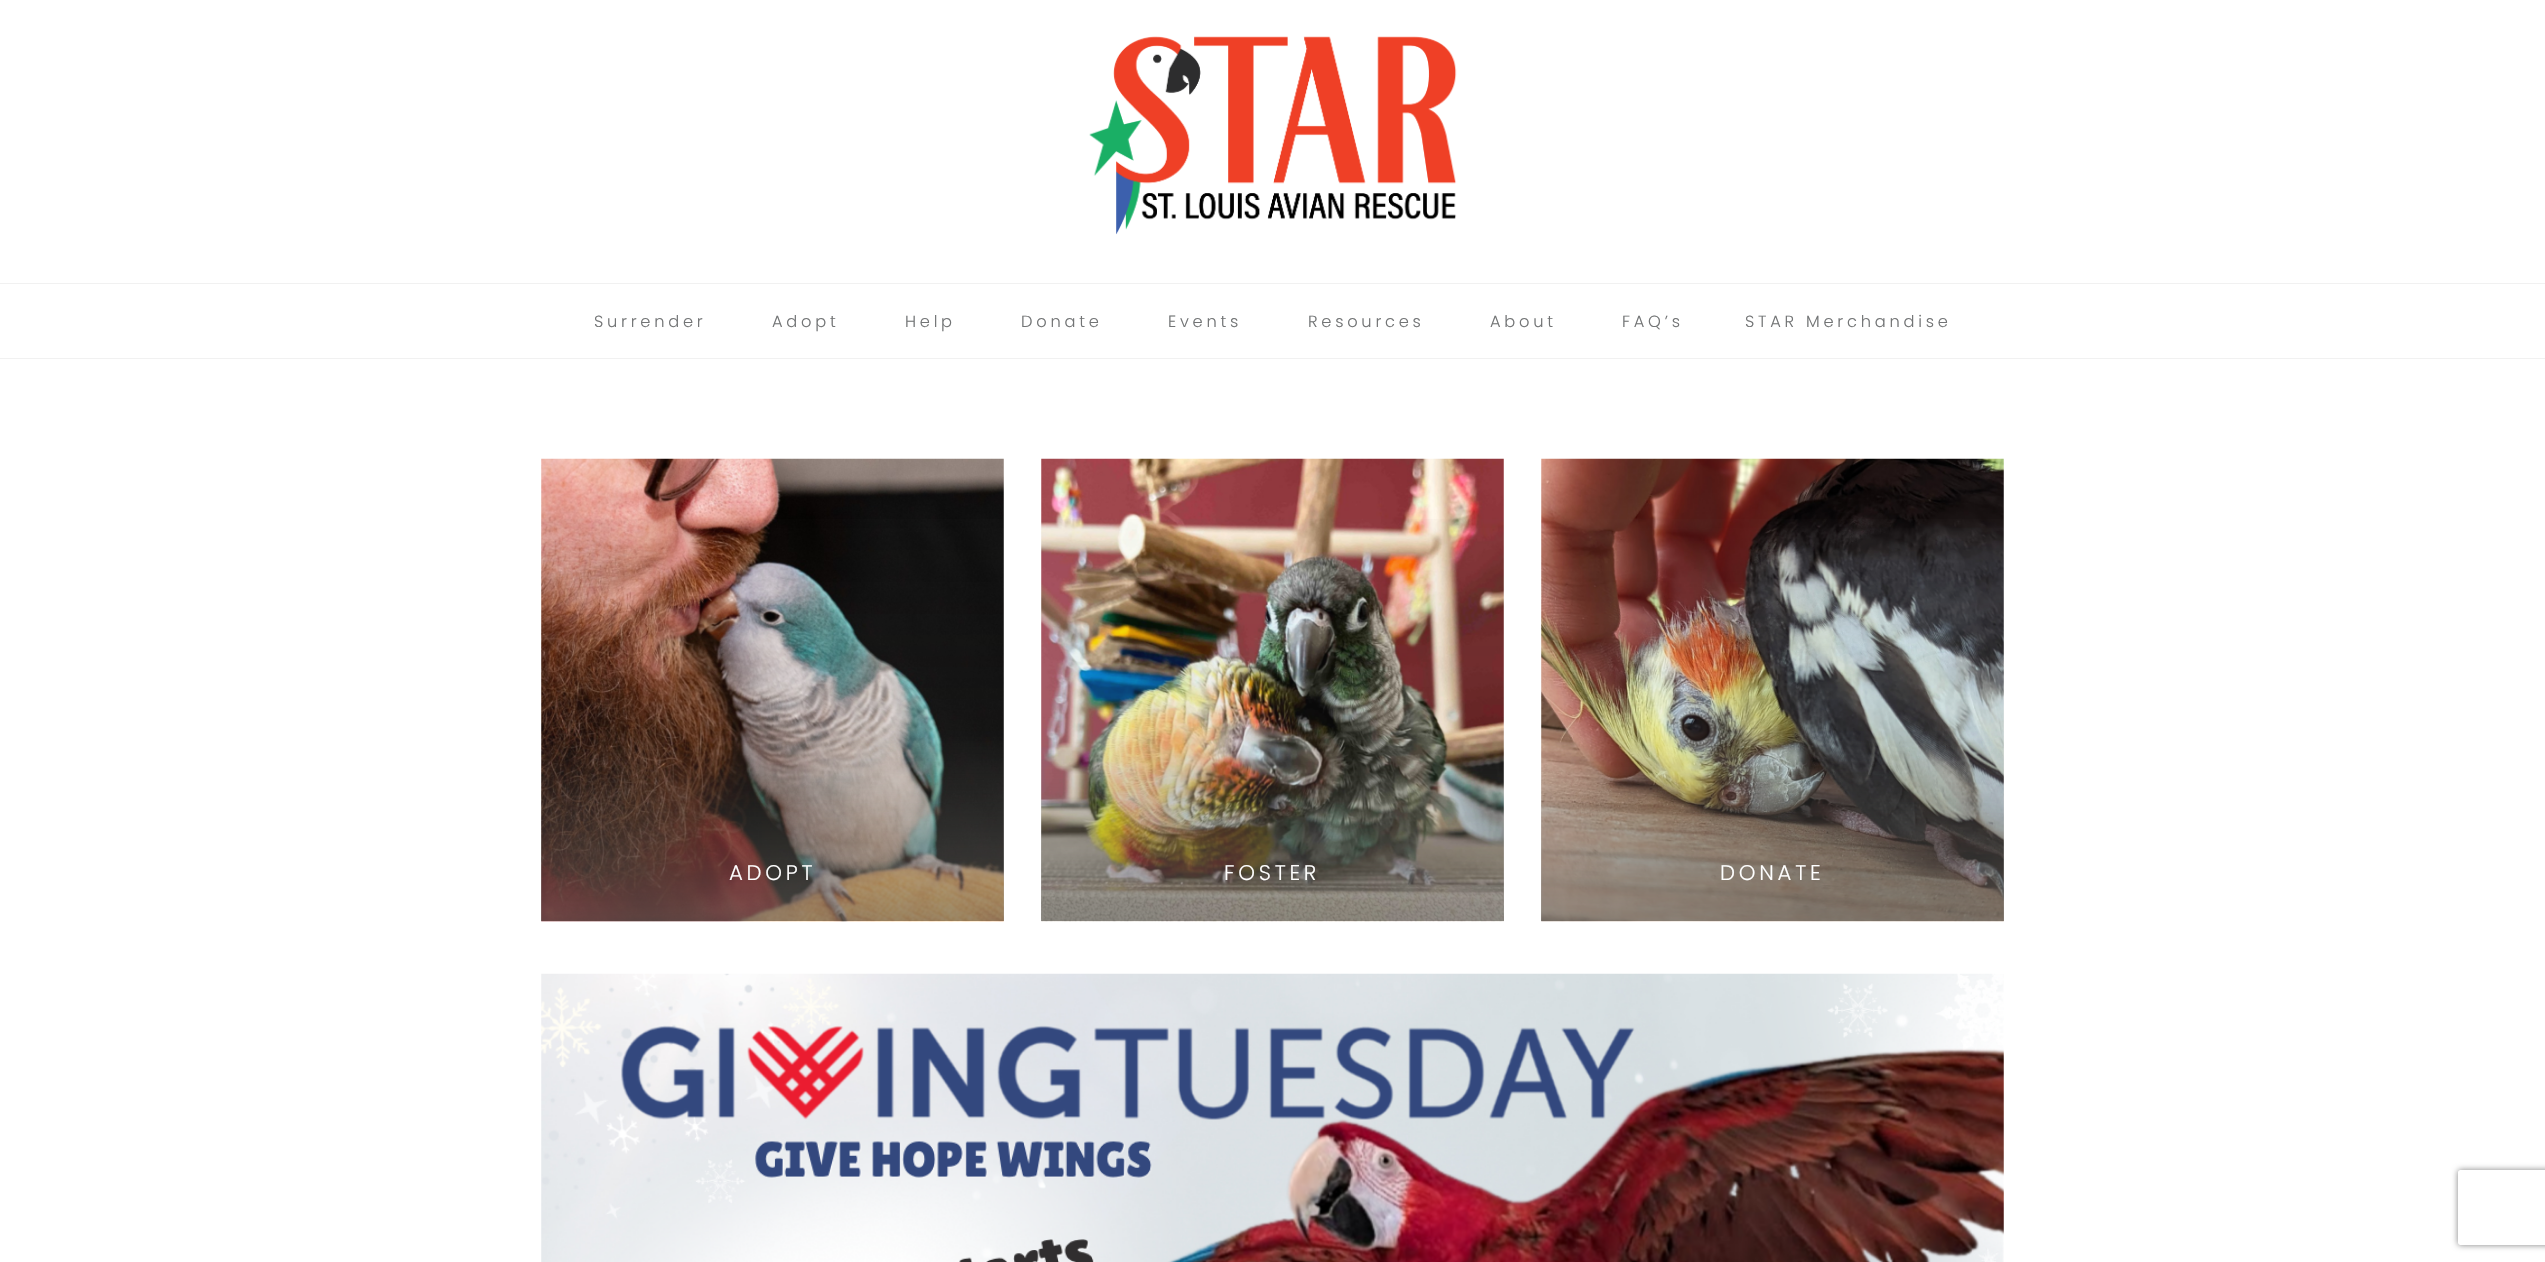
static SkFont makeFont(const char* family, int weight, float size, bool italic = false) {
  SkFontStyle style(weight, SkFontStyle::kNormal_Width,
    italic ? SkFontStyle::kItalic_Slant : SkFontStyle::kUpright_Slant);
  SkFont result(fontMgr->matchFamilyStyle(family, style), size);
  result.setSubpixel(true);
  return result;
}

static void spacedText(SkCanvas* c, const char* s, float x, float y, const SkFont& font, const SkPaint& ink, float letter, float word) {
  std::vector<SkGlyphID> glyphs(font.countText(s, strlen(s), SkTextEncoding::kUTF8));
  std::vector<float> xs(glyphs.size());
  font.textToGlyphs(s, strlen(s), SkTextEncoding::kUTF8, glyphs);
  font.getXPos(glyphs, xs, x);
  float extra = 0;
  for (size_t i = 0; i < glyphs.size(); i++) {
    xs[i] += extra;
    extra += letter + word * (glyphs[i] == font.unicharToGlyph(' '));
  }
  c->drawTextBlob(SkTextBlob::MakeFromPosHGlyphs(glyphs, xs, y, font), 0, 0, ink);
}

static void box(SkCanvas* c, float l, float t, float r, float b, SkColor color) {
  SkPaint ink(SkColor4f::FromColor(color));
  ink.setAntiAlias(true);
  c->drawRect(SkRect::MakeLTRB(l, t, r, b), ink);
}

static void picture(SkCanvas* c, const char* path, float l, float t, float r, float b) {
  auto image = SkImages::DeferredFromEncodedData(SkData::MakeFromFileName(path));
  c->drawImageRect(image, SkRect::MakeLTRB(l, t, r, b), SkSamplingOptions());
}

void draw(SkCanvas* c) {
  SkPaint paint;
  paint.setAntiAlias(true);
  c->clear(0xffffffff);
  picture(c, "img_01.png", 1089, 36, 1457, 235);
  box(c, 0, 283, 2545, 284, 0xfff1f1f1);
  box(c, 0, 358, 2545, 359, 0xfff1f1f1);
  SkFont face1 = makeFont("Poppins", 300, 16.25f);
  paint.setColor(0xff727475);
  spacedText(c, "Surrender", 594, 327, face1, paint, 3.75f, 0);
  spacedText(c, "Adopt", 772, 327, face1, paint, 3.75f, 0);
  spacedText(c, "Help", 905, 327, face1, paint, 3.75f, 0);
  spacedText(c, "Donate", 1021, 327, face1, paint, 3.75f, 0);
  spacedText(c, "Events", 1168, 327, face1, paint, 3.75f, 0);
  spacedText(c, "Resources", 1308, 327, face1, paint, 3.75f, 0);
  spacedText(c, "About", 1490, 327, face1, paint, 3.75f, 0);
  spacedText(c, "FAQ’s", 1622, 327, face1, paint, 3.75f, 0);
  spacedText(c, "STAR Merchandise", 1745, 327, face1, paint, 3.75f, 0);
  picture(c, "img_02.png", 541, 458, 1004, 922);
  {
    const SkColor colors[] = {0x00656460, 0x1a656460, 0xa6656460};
    const float stops[] = {0, 0.6f, 1};
    const SkPoint ends[] = {{773, 459}, {773, 921}};
    paint.setShader(SkGradientShader::MakeLinear(ends, colors, stops, 3, SkTileMode::kClamp));
    paint.setAlpha(255);
  }
  c->drawRect(SkRect::MakeLTRB(541, 519, 1004, 921), paint);
  SkFont face2 = makeFont("Poppins", 300, 21.25f);
  paint.setShader(nullptr);
  paint.setColor(0xffffffff);
  spacedText(c, "ADOPT", 729, 880, face2, paint, 3.75f, 0);
  picture(c, "img_03.png", 1041, 458, 1504, 922);
  {
    const SkColor colors[] = {0x00656460, 0x1a656460, 0xa6656460};
    const float stops[] = {0, 0.6f, 1};
    const SkPoint ends[] = {{1273, 459}, {1273, 921}};
    paint.setShader(SkGradientShader::MakeLinear(ends, colors, stops, 3, SkTileMode::kClamp));
    paint.setAlpha(255);
  }
  c->drawRect(SkRect::MakeLTRB(1041, 519, 1504, 921), paint);
  paint.setShader(nullptr);
  paint.setColor(0xffffffff);
  spacedText(c, "FOSTER", 1224, 880, face2, paint, 3.75f, 0);
  picture(c, "img_04.png", 1541, 458, 2004, 922);
  {
    const SkColor colors[] = {0x00656460, 0x1a656460, 0xa6656460};
    const float stops[] = {0, 0.6f, 1};
    const SkPoint ends[] = {{1773, 459}, {1773, 921}};
    paint.setShader(SkGradientShader::MakeLinear(ends, colors, stops, 3, SkTileMode::kClamp));
    paint.setAlpha(255);
  }
  c->drawRect(SkRect::MakeLTRB(1541, 519, 2004, 921), paint);
  paint.setShader(nullptr);
  paint.setColor(0xffffffff);
  spacedText(c, "DONATE", 1720, 880, face2, paint, 3.75f, 0);
  picture(c, "img_05.png", 541, 973, 2004, 1262);
  c->save();
  c->clipPath(SkPathBuilder(SkPathFillType::kEvenOdd).moveTo(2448, 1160).lineTo(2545, 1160).lineTo(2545, 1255).lineTo(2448, 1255).close().moveTo(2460.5f, 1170).lineTo(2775.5f, 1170).cubicTo(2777, 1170, 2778, 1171, 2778, 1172.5f).lineTo(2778, 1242.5f).cubicTo(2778, 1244, 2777, 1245, 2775.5f, 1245).lineTo(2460.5f, 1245).cubicTo(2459, 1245, 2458, 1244, 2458, 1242.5f).lineTo(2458, 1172.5f).cubicTo(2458, 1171, 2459, 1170, 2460.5f, 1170).close().detach(), true);
  paint.setColor(0xff808080);
  paint.setMaskFilter(SkMaskFilter::MakeBlur(kNormal_SkBlurStyle, 3));
  c->drawRoundRect(SkRect::MakeLTRB(2458, 1170, 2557, 1245), 2.5f, 2.5f, paint);
  paint.setMaskFilter(nullptr);
  c->restore();
}
